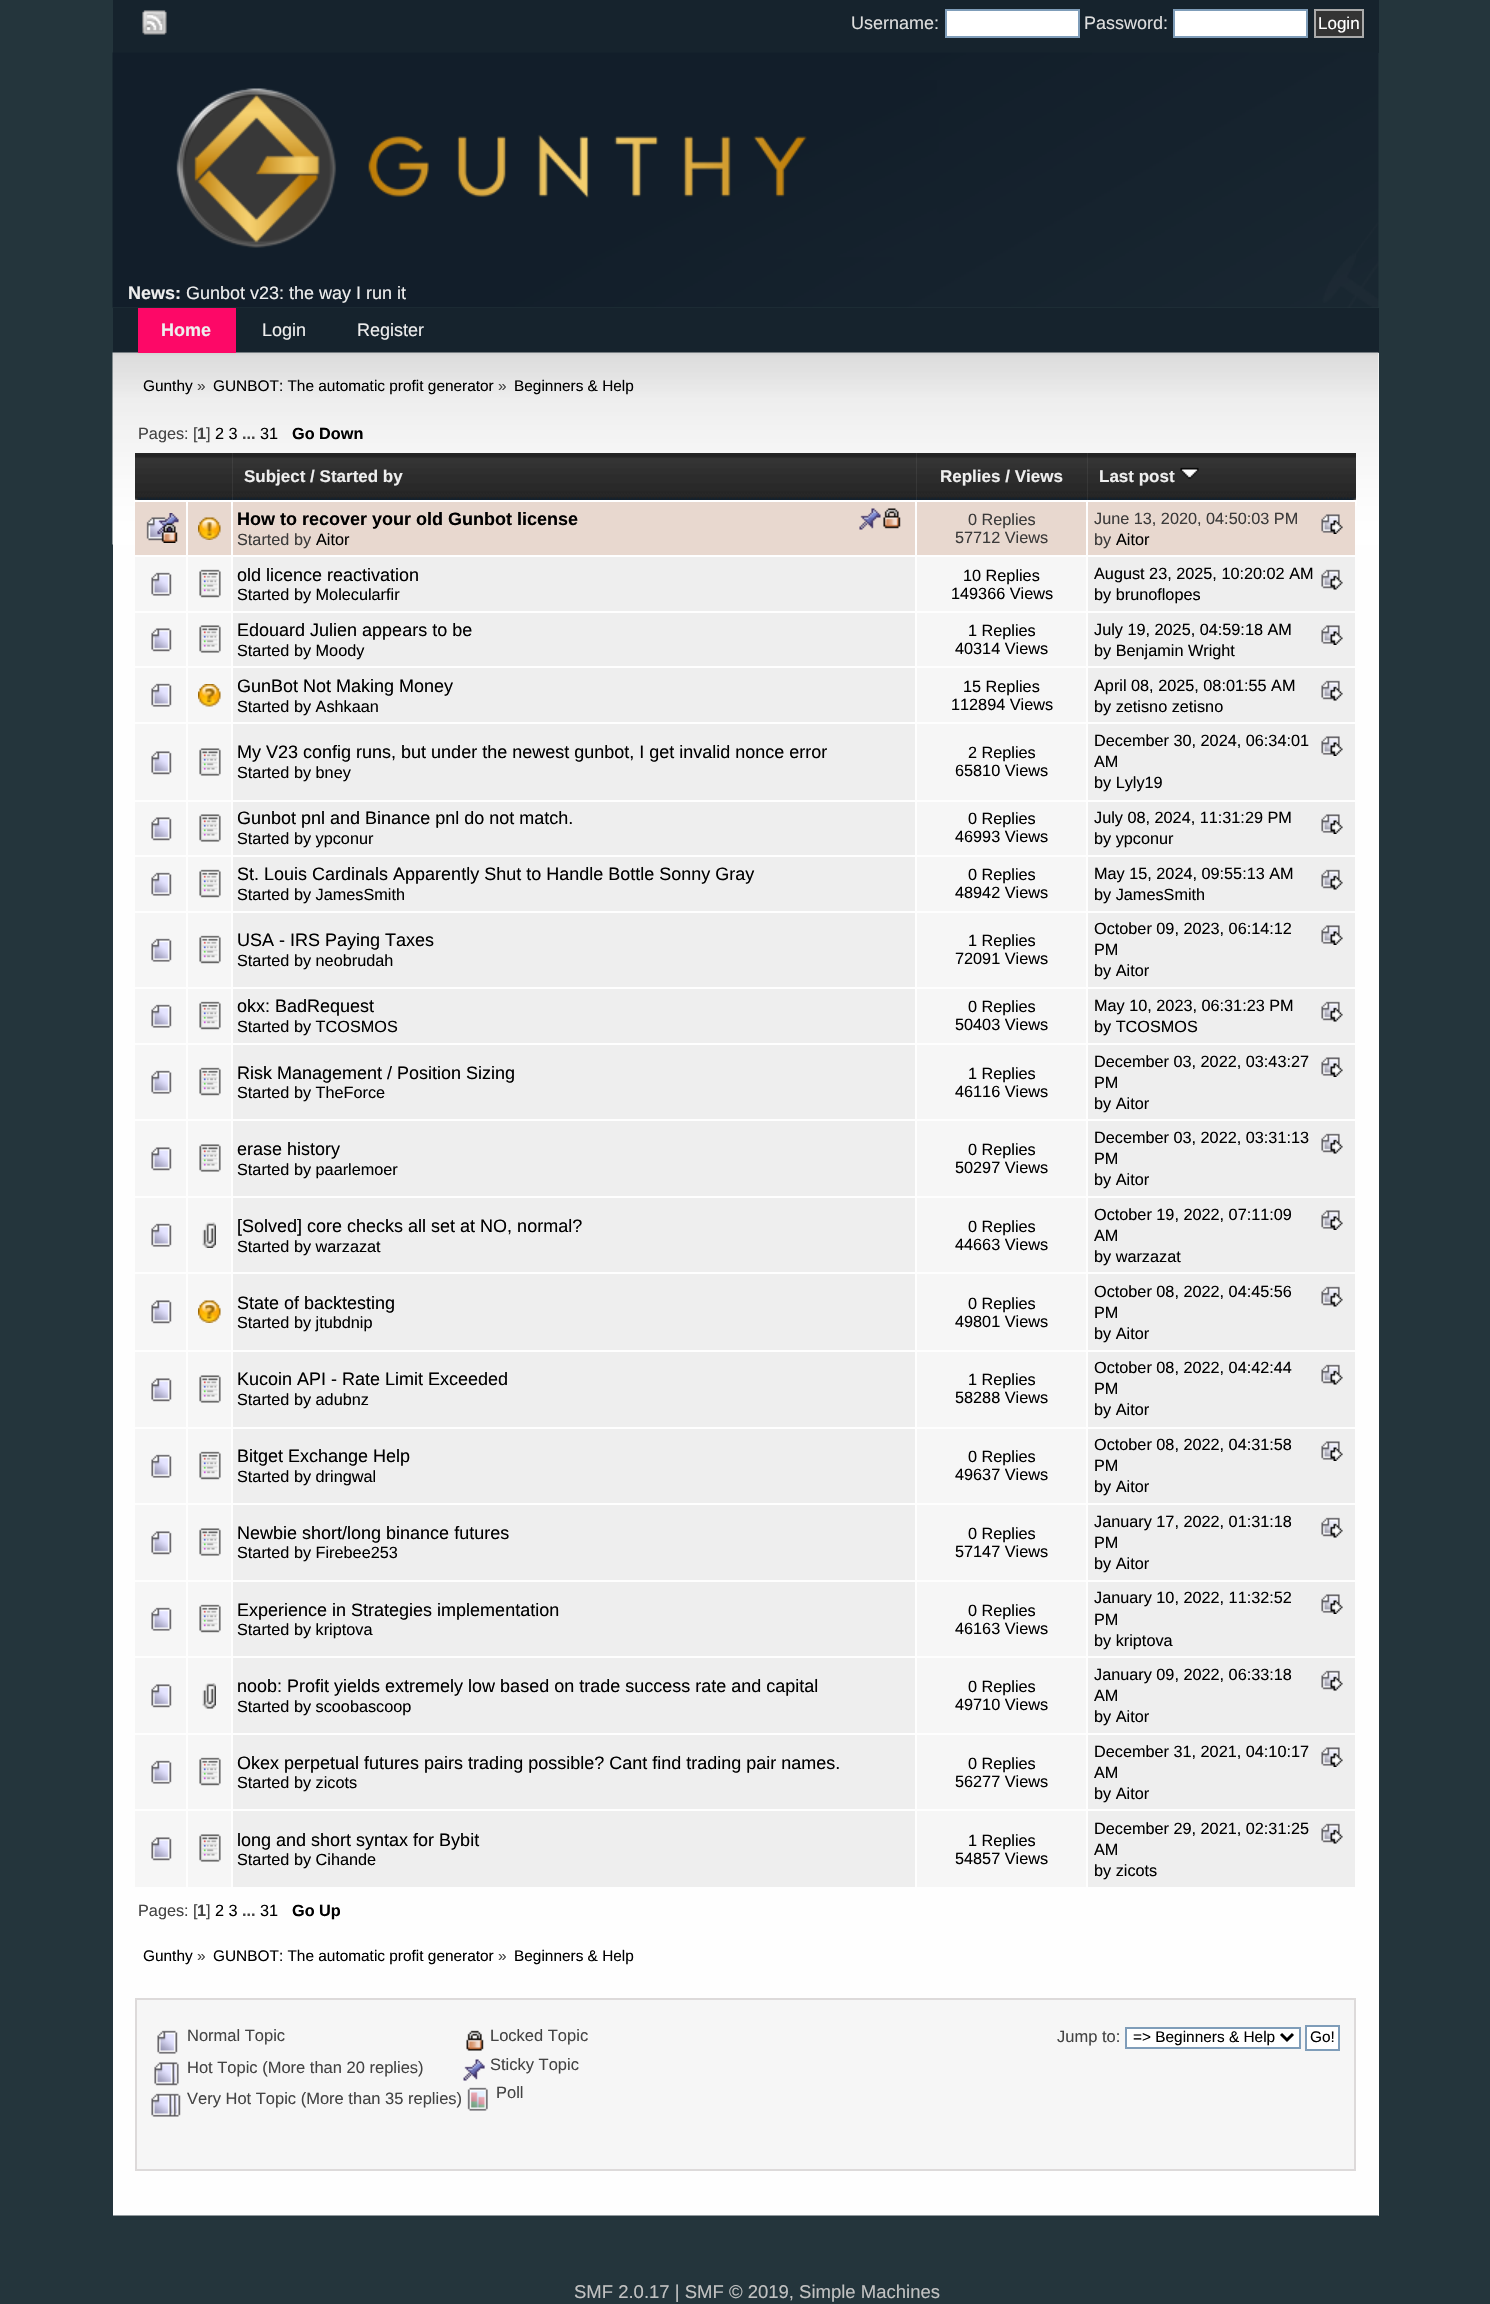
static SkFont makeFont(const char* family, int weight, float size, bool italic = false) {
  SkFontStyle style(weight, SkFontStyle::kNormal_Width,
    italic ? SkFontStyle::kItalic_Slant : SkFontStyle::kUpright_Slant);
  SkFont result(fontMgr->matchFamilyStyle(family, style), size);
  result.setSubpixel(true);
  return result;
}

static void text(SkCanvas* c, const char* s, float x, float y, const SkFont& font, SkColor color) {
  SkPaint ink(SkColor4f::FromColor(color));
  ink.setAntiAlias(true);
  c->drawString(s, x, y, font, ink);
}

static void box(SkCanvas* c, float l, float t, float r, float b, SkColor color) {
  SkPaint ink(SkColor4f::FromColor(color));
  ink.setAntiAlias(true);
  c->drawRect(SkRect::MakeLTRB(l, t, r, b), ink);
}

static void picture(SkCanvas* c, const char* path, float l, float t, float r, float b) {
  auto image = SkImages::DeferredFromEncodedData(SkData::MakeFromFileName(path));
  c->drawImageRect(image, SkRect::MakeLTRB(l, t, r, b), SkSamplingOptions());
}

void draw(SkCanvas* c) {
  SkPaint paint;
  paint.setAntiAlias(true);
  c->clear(0xff24353c);
  box(c, 113, 0, 1379, 53, 0xff16232d);
  picture(c, "img_01.png", 142, 10, 167, 35);
  SkFont face1 = makeFont("Liberation Sans", 400, 18);
  text(c, "Username:", 851, 29, face1, 0xffdedede);
  paint.setColor(0xffffffff);
  c->drawRect(SkRect::MakeLTRB(946, 10, 1079, 37), paint);
  paint.setStyle(SkPaint::kStroke_Style);
  paint.setStrokeWidth(2);
  paint.setColor(0xff7f9db9);
  c->drawRect(SkRect::MakeLTRB(946, 10, 1079, 37), paint);
  text(c, "Password:", 1084, 29, face1, 0xffdedede);
  paint.setStyle(SkPaint::kFill_Style);
  paint.setColor(0xffffffff);
  c->drawRect(SkRect::MakeLTRB(1174, 10, 1307, 37), paint);
  paint.setStyle(SkPaint::kStroke_Style);
  paint.setColor(0xff7f9db9);
  c->drawRect(SkRect::MakeLTRB(1174, 10, 1307, 37), paint);
  paint.setStyle(SkPaint::kFill_Style);
  paint.setColor(0xff343434);
  c->drawRect(SkRect::MakeLTRB(1315, 10, 1363, 37), paint);
  paint.setStyle(SkPaint::kStroke_Style);
  paint.setColor(0xffaaaaaa);
  c->drawRect(SkRect::MakeLTRB(1315, 10, 1363, 37), paint);
  SkFont face2 = makeFont("Liberation Sans", 400, 17);
  text(c, "Login", 1318, 29, face2, 0xffffffff);
  picture(c, "img_02.png", 112, 52, 1379, 308);
  SkFont face3 = makeFont("Liberation Sans", 700, 18);
  text(c, "News:", 128, 299, face3, 0xffeeeeee);
  text(c, "Gunbot v23: the way I run it", 186, 299, face1, 0xffeeeeee);
  box(c, 113, 308, 1379, 353, 0xff16232d);
  box(c, 113, 353, 1379, 2216, 0xfffefefe);
  picture(c, "img_03.png", 112, 352, 1379, 545);
  box(c, 138, 308, 236, 353, 0xfffd0867);
  text(c, "Home", 161, 336, face3, 0xffeeeeee);
  text(c, "Login", 262, 336, face1, 0xffeeeeee);
  text(c, "Register", 357, 336, face1, 0xffeeeeee);
  SkFont face4 = makeFont("Liberation Sans", 400, 15.4f);
  text(c, "Gunthy", 143, 391, face4, 0xff000000);
  text(c, "»", 197, 391, face4, 0xff444444);
  text(c, "GUNBOT: The automatic profit generator", 213, 391, face4, 0xff000000);
  text(c, "»", 498, 391, face4, 0xff444444);
  text(c, "Beginners & Help", 514, 391, face4, 0xff000000);
  SkFont face5 = makeFont("Liberation Sans", 400, 16.25f);
  text(c, "Pages: [", 138, 439, face5, 0xff444444);
  SkFont face6 = makeFont("Liberation Sans", 700, 16.25f);
  text(c, "1", 197, 439, face6, 0xff444444);
  text(c, "]", 206, 439, face5, 0xff444444);
  text(c, "2 3", 215, 439, face5, 0xff000000);
  text(c, "...", 242, 439, face6, 0xff444444);
  text(c, "31", 260, 439, face5, 0xff000000);
  text(c, "Go Down", 292, 439, face6, 0xff000000);
  box(c, 134, 500, 1356, 502, 0xffffffff);
  picture(c, "img_04.png", 135, 453, 233, 500);
  picture(c, "img_05.png", 232, 453, 917, 500);
  SkFont face7 = makeFont("Liberation Sans", 700, 17);
  text(c, "Subject / Started by", 244, 482, face7, 0xffeeeeee);
  picture(c, "img_06.png", 916, 453, 1088, 500);
  text(c, "Replies / Views", 940, 482, face7, 0xffeeeeee);
  picture(c, "img_07.png", 1087, 453, 1356, 500);
  text(c, "Last post", 1099, 482, face7, 0xffeeeeee);
  picture(c, "img_08.png", 1180, 467, 1199, 479);
  box(c, 135, 502, 186, 555, 0xffe8d8cf);
  box(c, 186, 500, 188, 506, 0xffffffff);
  picture(c, "img_09.png", 146, 513, 179, 543);
  box(c, 188, 502, 231, 555, 0xffe8d8cf);
  box(c, 231, 500, 233, 506, 0xffffffff);
  picture(c, "img_10.png", 198, 517, 221, 540);
  box(c, 233, 502, 915, 555, 0xffe8d8cf);
  picture(c, "img_11.png", 859, 508, 901, 530);
  box(c, 915, 500, 917, 506, 0xffffffff);
  text(c, "How to recover your old Gunbot license", 237, 525, face3, 0xff000000);
  text(c, "Started by", 237, 545, face5, 0xff3b3a3a);
  text(c, "Aitor", 316, 545, face5, 0xff000000);
  box(c, 917, 502, 1086, 555, 0xffe8d8cf);
  box(c, 1086, 500, 1088, 506, 0xffffffff);
  text(c, "0 Replies", 968, 525, face5, 0xff3b3a3a);
  text(c, "57712 Views", 955, 543, face5, 0xff3b3a3a);
  box(c, 1088, 502, 1355, 555, 0xffe8d8cf);
  box(c, 1355, 500, 1357, 506, 0xffffffff);
  text(c, "June 13, 2020, 04:50:03 PM", 1094, 524, face5, 0xff3b3a3a);
  picture(c, "img_12.png", 1321, 514, 1343, 534);
  text(c, "by", 1094, 545, face5, 0xff3b3a3a);
  text(c, "Aitor", 1116, 545, face5, 0xff000000);
  box(c, 135, 557, 186, 611, 0xfff6f6f6);
  picture(c, "img_13.png", 151, 572, 172, 596);
  box(c, 188, 557, 231, 611, 0xfff6f6f6);
  picture(c, "img_14.png", 199, 569, 221, 598);
  box(c, 233, 557, 915, 611, 0xffeeeeee);
  text(c, "old licence reactivation", 237, 581, face1, 0xff000000);
  text(c, "Started by Molecularfir", 237, 600, face5, 0xff000000);
  box(c, 917, 557, 1086, 611, 0xfff6f6f6);
  text(c, "10 Replies", 963, 581, face5, 0xff000000);
  text(c, "149366 Views", 951, 599, face5, 0xff000000);
  box(c, 1088, 557, 1355, 611, 0xffeeeeee);
  text(c, "August 23, 2025, 10:20:02 AM", 1094, 579, face5, 0xff000000);
  picture(c, "img_15.png", 1321, 569, 1343, 590);
  text(c, "by brunoflopes", 1094, 600, face5, 0xff000000);
  box(c, 135, 613, 186, 666, 0xfff6f6f6);
  picture(c, "img_16.png", 151, 628, 172, 652);
  box(c, 188, 613, 231, 666, 0xfff6f6f6);
  picture(c, "img_17.png", 199, 625, 221, 653);
  box(c, 233, 613, 915, 666, 0xffeeeeee);
  text(c, "Edouard Julien appears to be", 237, 636, face1, 0xff000000);
  text(c, "Started by Moody", 237, 656, face5, 0xff000000);
  box(c, 917, 613, 1086, 666, 0xfff6f6f6);
  text(c, "1 Replies", 968, 636, face5, 0xff000000);
  text(c, "40314 Views", 955, 654, face5, 0xff000000);
  box(c, 1088, 613, 1355, 666, 0xffeeeeee);
  text(c, "July 19, 2025, 04:59:18 AM", 1094, 635, face5, 0xff000000);
  picture(c, "img_18.png", 1321, 625, 1343, 645);
  text(c, "by Benjamin Wright", 1094, 656, face5, 0xff000000);
  box(c, 135, 668, 186, 722, 0xfff6f6f6);
  picture(c, "img_13.png", 151, 683, 172, 707);
  box(c, 188, 668, 231, 722, 0xfff6f6f6);
  picture(c, "img_19.png", 198, 684, 221, 707);
  box(c, 233, 668, 915, 722, 0xffeeeeee);
  text(c, "GunBot Not Making Money", 237, 692, face1, 0xff000000);
  text(c, "Started by Ashkaan", 237, 712, face5, 0xff000000);
  box(c, 917, 668, 1086, 722, 0xfff6f6f6);
  text(c, "15 Replies", 963, 692, face5, 0xff000000);
  text(c, "112894 Views", 951, 710, face5, 0xff000000);
  box(c, 1088, 668, 1355, 722, 0xffeeeeee);
  text(c, "April 08, 2025, 08:01:55 AM", 1094, 691, face5, 0xff000000);
  picture(c, "img_15.png", 1321, 680, 1343, 701);
  text(c, "by zetisno zetisno", 1094, 712, face5, 0xff000000);
  box(c, 135, 724, 186, 800, 0xfff6f6f6);
  picture(c, "img_16.png", 151, 751, 172, 775);
  box(c, 188, 724, 231, 800, 0xfff6f6f6);
  picture(c, "img_17.png", 199, 748, 221, 776);
  box(c, 233, 724, 915, 800, 0xffeeeeee);
  text(c, "My V23 config runs, but under the newest gunbot, I get invalid nonce error", 237, 758, face1, 0xff000000);
  text(c, "Started by bney", 237, 778, face5, 0xff000000);
  box(c, 917, 724, 1086, 800, 0xfff6f6f6);
  text(c, "2 Replies", 968, 758, face5, 0xff000000);
  text(c, "65810 Views", 955, 776, face5, 0xff000000);
  box(c, 1088, 724, 1355, 800, 0xffeeeeee);
  text(c, "December 30, 2024, 06:34:01", 1094, 746, face5, 0xff000000);
  picture(c, "img_18.png", 1321, 736, 1343, 756);
  text(c, "AM", 1094, 767, face5, 0xff000000);
  text(c, "by Lyly19", 1094, 788, face5, 0xff000000);
  box(c, 135, 802, 186, 855, 0xfff6f6f6);
  picture(c, "img_16.png", 151, 817, 172, 841);
  box(c, 188, 802, 231, 855, 0xfff6f6f6);
  picture(c, "img_17.png", 199, 814, 221, 842);
  box(c, 233, 802, 915, 855, 0xffeeeeee);
  text(c, "Gunbot pnl and Binance pnl do not match.", 237, 824, face1, 0xff000000);
  text(c, "Started by ypconur", 237, 844, face5, 0xff000000);
  box(c, 917, 802, 1086, 855, 0xfff6f6f6);
  text(c, "0 Replies", 968, 824, face5, 0xff000000);
  text(c, "46993 Views", 955, 842, face5, 0xff000000);
  box(c, 1088, 802, 1355, 855, 0xffeeeeee);
  text(c, "July 08, 2024, 11:31:29 PM", 1094, 823, face5, 0xff000000);
  picture(c, "img_18.png", 1321, 814, 1343, 834);
  text(c, "by ypconur", 1094, 844, face5, 0xff000000);
  box(c, 135, 857, 186, 911, 0xfff6f6f6);
  picture(c, "img_13.png", 151, 872, 172, 896);
  box(c, 188, 857, 231, 911, 0xfff6f6f6);
  picture(c, "img_14.png", 199, 869, 221, 898);
  box(c, 233, 857, 915, 911, 0xffeeeeee);
  text(c, "St. Louis Cardinals Apparently Shut to Handle Bottle Sonny Gray", 237, 880, face1, 0xff000000);
  text(c, "Started by JamesSmith", 237, 900, face5, 0xff000000);
  box(c, 917, 857, 1086, 911, 0xfff6f6f6);
  text(c, "0 Replies", 968, 880, face5, 0xff000000);
  text(c, "48942 Views", 955, 898, face5, 0xff000000);
  box(c, 1088, 857, 1355, 911, 0xffeeeeee);
  text(c, "May 15, 2024, 09:55:13 AM", 1094, 879, face5, 0xff000000);
  picture(c, "img_15.png", 1321, 869, 1343, 890);
  text(c, "by JamesSmith", 1094, 900, face5, 0xff000000);
  box(c, 135, 913, 186, 987, 0xfff6f6f6);
  picture(c, "img_13.png", 151, 938, 172, 962);
  box(c, 188, 913, 231, 987, 0xfff6f6f6);
  picture(c, "img_14.png", 199, 935, 221, 964);
  box(c, 233, 913, 915, 987, 0xffeeeeee);
  text(c, "USA - IRS Paying Taxes", 237, 946, face1, 0xff000000);
  text(c, "Started by neobrudah", 237, 966, face5, 0xff000000);
  box(c, 917, 913, 1086, 987, 0xfff6f6f6);
  text(c, "1 Replies", 968, 946, face5, 0xff000000);
  text(c, "72091 Views", 955, 964, face5, 0xff000000);
  box(c, 1088, 913, 1355, 987, 0xffeeeeee);
  text(c, "October 09, 2023, 06:14:12", 1094, 934, face5, 0xff000000);
  picture(c, "img_18.png", 1321, 925, 1343, 945);
  text(c, "PM", 1094, 955, face5, 0xff000000);
  text(c, "by Aitor", 1094, 976, face5, 0xff000000);
  box(c, 135, 989, 186, 1043, 0xfff6f6f6);
  picture(c, "img_13.png", 151, 1004, 172, 1028);
  box(c, 188, 989, 231, 1043, 0xfff6f6f6);
  picture(c, "img_14.png", 199, 1001, 221, 1030);
  box(c, 233, 989, 915, 1043, 0xffeeeeee);
  text(c, "okx: BadRequest", 237, 1012, face1, 0xff000000);
  text(c, "Started by TCOSMOS", 237, 1032, face5, 0xff000000);
  box(c, 917, 989, 1086, 1043, 0xfff6f6f6);
  text(c, "0 Replies", 968, 1012, face5, 0xff000000);
  text(c, "50403 Views", 955, 1030, face5, 0xff000000);
  box(c, 1088, 989, 1355, 1043, 0xffeeeeee);
  text(c, "May 10, 2023, 06:31:23 PM", 1094, 1011, face5, 0xff000000);
  picture(c, "img_15.png", 1321, 1001, 1343, 1022);
  text(c, "by TCOSMOS", 1094, 1032, face5, 0xff000000);
  box(c, 135, 1045, 186, 1119, 0xfff6f6f6);
  picture(c, "img_13.png", 151, 1070, 172, 1094);
  box(c, 188, 1045, 231, 1119, 0xfff6f6f6);
  picture(c, "img_14.png", 199, 1067, 221, 1096);
  box(c, 233, 1045, 915, 1119, 0xffeeeeee);
  text(c, "Risk Management / Position Sizing", 237, 1079, face1, 0xff000000);
  text(c, "Started by TheForce", 237, 1098, face5, 0xff000000);
  box(c, 917, 1045, 1086, 1119, 0xfff6f6f6);
  text(c, "1 Replies", 968, 1079, face5, 0xff000000);
  text(c, "46116 Views", 955, 1097, face5, 0xff000000);
  box(c, 1088, 1045, 1355, 1119, 0xffeeeeee);
  text(c, "December 03, 2022, 03:43:27", 1094, 1067, face5, 0xff000000);
  picture(c, "img_18.png", 1321, 1057, 1343, 1077);
  text(c, "PM", 1094, 1088, face5, 0xff000000);
  text(c, "by Aitor", 1094, 1109, face5, 0xff000000);
  box(c, 135, 1121, 186, 1196, 0xfff6f6f6);
  picture(c, "img_16.png", 151, 1147, 172, 1171);
  box(c, 188, 1121, 231, 1196, 0xfff6f6f6);
  picture(c, "img_17.png", 199, 1144, 221, 1172);
  box(c, 233, 1121, 915, 1196, 0xffeeeeee);
  text(c, "erase history", 237, 1155, face1, 0xff000000);
  text(c, "Started by paarlemoer", 237, 1175, face5, 0xff000000);
  box(c, 917, 1121, 1086, 1196, 0xfff6f6f6);
  text(c, "0 Replies", 968, 1155, face5, 0xff000000);
  text(c, "50297 Views", 955, 1173, face5, 0xff000000);
  box(c, 1088, 1121, 1355, 1196, 0xffeeeeee);
  text(c, "December 03, 2022, 03:31:13", 1094, 1143, face5, 0xff000000);
  picture(c, "img_15.png", 1321, 1133, 1343, 1154);
  text(c, "PM", 1094, 1164, face5, 0xff000000);
  text(c, "by Aitor", 1094, 1185, face5, 0xff000000);
  box(c, 135, 1198, 186, 1272, 0xfff6f6f6);
  picture(c, "img_13.png", 151, 1223, 172, 1247);
  box(c, 188, 1198, 231, 1272, 0xfff6f6f6);
  picture(c, "img_20.png", 202, 1222, 216, 1248);
  box(c, 233, 1198, 915, 1272, 0xffeeeeee);
  text(c, "[Solved] core checks all set at NO, normal?", 237, 1232, face1, 0xff000000);
  text(c, "Started by warzazat", 237, 1252, face5, 0xff000000);
  box(c, 917, 1198, 1086, 1272, 0xfff6f6f6);
  text(c, "0 Replies", 968, 1232, face5, 0xff000000);
  text(c, "44663 Views", 955, 1250, face5, 0xff000000);
  box(c, 1088, 1198, 1355, 1272, 0xffeeeeee);
  text(c, "October 19, 2022, 07:11:09", 1094, 1220, face5, 0xff000000);
  picture(c, "img_18.png", 1321, 1210, 1343, 1230);
  text(c, "AM", 1094, 1241, face5, 0xff000000);
  text(c, "by warzazat", 1094, 1262, face5, 0xff000000);
  box(c, 135, 1274, 186, 1350, 0xfff6f6f6);
  picture(c, "img_16.png", 151, 1300, 172, 1324);
  box(c, 188, 1274, 231, 1350, 0xfff6f6f6);
  picture(c, "img_21.png", 198, 1300, 221, 1323);
  box(c, 233, 1274, 915, 1350, 0xffeeeeee);
  text(c, "State of backtesting", 237, 1309, face1, 0xff000000);
  text(c, "Started by jtubdnip", 237, 1328, face5, 0xff000000);
  box(c, 917, 1274, 1086, 1350, 0xfff6f6f6);
  text(c, "0 Replies", 968, 1309, face5, 0xff000000);
  text(c, "49801 Views", 955, 1327, face5, 0xff000000);
  box(c, 1088, 1274, 1355, 1350, 0xffeeeeee);
  text(c, "October 08, 2022, 04:45:56", 1094, 1297, face5, 0xff000000);
  picture(c, "img_15.png", 1321, 1286, 1343, 1307);
  text(c, "PM", 1094, 1318, face5, 0xff000000);
  text(c, "by Aitor", 1094, 1339, face5, 0xff000000);
  box(c, 135, 1352, 186, 1427, 0xfff6f6f6);
  picture(c, "img_16.png", 151, 1378, 172, 1402);
  box(c, 188, 1352, 231, 1427, 0xfff6f6f6);
  picture(c, "img_17.png", 199, 1375, 221, 1403);
  box(c, 233, 1352, 915, 1427, 0xffeeeeee);
  text(c, "Kucoin API - Rate Limit Exceeded", 237, 1385, face1, 0xff000000);
  text(c, "Started by adubnz", 237, 1405, face5, 0xff000000);
  box(c, 917, 1352, 1086, 1427, 0xfff6f6f6);
  text(c, "1 Replies", 968, 1385, face5, 0xff000000);
  text(c, "58288 Views", 955, 1403, face5, 0xff000000);
  box(c, 1088, 1352, 1355, 1427, 0xffeeeeee);
  text(c, "October 08, 2022, 04:42:44", 1094, 1373, face5, 0xff000000);
  picture(c, "img_15.png", 1321, 1364, 1343, 1385);
  text(c, "PM", 1094, 1394, face5, 0xff000000);
  text(c, "by Aitor", 1094, 1415, face5, 0xff000000);
  box(c, 135, 1429, 186, 1503, 0xfff6f6f6);
  picture(c, "img_13.png", 151, 1454, 172, 1478);
  box(c, 188, 1429, 231, 1503, 0xfff6f6f6);
  picture(c, "img_14.png", 199, 1451, 221, 1480);
  box(c, 233, 1429, 915, 1503, 0xffeeeeee);
  text(c, "Bitget Exchange Help", 237, 1462, face1, 0xff000000);
  text(c, "Started by dringwal", 237, 1482, face5, 0xff000000);
  box(c, 917, 1429, 1086, 1503, 0xfff6f6f6);
  text(c, "0 Replies", 968, 1462, face5, 0xff000000);
  text(c, "49637 Views", 955, 1480, face5, 0xff000000);
  box(c, 1088, 1429, 1355, 1503, 0xffeeeeee);
  text(c, "October 08, 2022, 04:31:58", 1094, 1450, face5, 0xff000000);
  picture(c, "img_18.png", 1321, 1441, 1343, 1461);
  text(c, "PM", 1094, 1471, face5, 0xff000000);
  text(c, "by Aitor", 1094, 1492, face5, 0xff000000);
  box(c, 135, 1505, 186, 1580, 0xfff6f6f6);
  picture(c, "img_16.png", 151, 1531, 172, 1555);
  box(c, 188, 1505, 231, 1580, 0xfff6f6f6);
  picture(c, "img_17.png", 199, 1528, 221, 1556);
  box(c, 233, 1505, 915, 1580, 0xffeeeeee);
  text(c, "Newbie short/long binance futures", 237, 1539, face1, 0xff000000);
  text(c, "Started by Firebee253", 237, 1558, face5, 0xff000000);
  box(c, 917, 1505, 1086, 1580, 0xfff6f6f6);
  text(c, "0 Replies", 968, 1539, face5, 0xff000000);
  text(c, "57147 Views", 955, 1557, face5, 0xff000000);
  box(c, 1088, 1505, 1355, 1580, 0xffeeeeee);
  text(c, "January 17, 2022, 01:31:18", 1094, 1527, face5, 0xff000000);
  picture(c, "img_15.png", 1321, 1517, 1343, 1538);
  text(c, "PM", 1094, 1548, face5, 0xff000000);
  text(c, "by Aitor", 1094, 1569, face5, 0xff000000);
  box(c, 135, 1582, 186, 1656, 0xfff6f6f6);
  picture(c, "img_13.png", 151, 1607, 172, 1631);
  box(c, 188, 1582, 231, 1656, 0xfff6f6f6);
  picture(c, "img_14.png", 199, 1604, 221, 1633);
  box(c, 233, 1582, 915, 1656, 0xffeeeeee);
  text(c, "Experience in Strategies implementation", 237, 1616, face1, 0xff000000);
  text(c, "Started by kriptova", 237, 1635, face5, 0xff000000);
  box(c, 917, 1582, 1086, 1656, 0xfff6f6f6);
  text(c, "0 Replies", 968, 1616, face5, 0xff000000);
  text(c, "46163 Views", 955, 1634, face5, 0xff000000);
  box(c, 1088, 1582, 1355, 1656, 0xffeeeeee);
  text(c, "January 10, 2022, 11:32:52", 1094, 1603, face5, 0xff000000);
  picture(c, "img_18.png", 1321, 1594, 1343, 1614);
  text(c, "PM", 1094, 1625, face5, 0xff000000);
  text(c, "by kriptova", 1094, 1646, face5, 0xff000000);
  box(c, 135, 1658, 186, 1733, 0xfff6f6f6);
  picture(c, "img_16.png", 151, 1684, 172, 1708);
  box(c, 188, 1658, 231, 1733, 0xfff6f6f6);
  picture(c, "img_22.png", 202, 1683, 216, 1709);
  box(c, 233, 1658, 915, 1733, 0xffeeeeee);
  text(c, "noob: Profit yields extremely low based on trade success rate and capital", 237, 1692, face1, 0xff000000);
  text(c, "Started by scoobascoop", 237, 1712, face5, 0xff000000);
  box(c, 917, 1658, 1086, 1733, 0xfff6f6f6);
  text(c, "0 Replies", 968, 1692, face5, 0xff000000);
  text(c, "49710 Views", 955, 1710, face5, 0xff000000);
  box(c, 1088, 1658, 1355, 1733, 0xffeeeeee);
  text(c, "January 09, 2022, 06:33:18", 1094, 1680, face5, 0xff000000);
  picture(c, "img_15.png", 1321, 1670, 1343, 1691);
  text(c, "AM", 1094, 1701, face5, 0xff000000);
  text(c, "by Aitor", 1094, 1722, face5, 0xff000000);
  box(c, 135, 1735, 186, 1809, 0xfff6f6f6);
  picture(c, "img_13.png", 151, 1760, 172, 1784);
  box(c, 188, 1735, 231, 1809, 0xfff6f6f6);
  picture(c, "img_14.png", 199, 1757, 221, 1786);
  box(c, 233, 1735, 915, 1809, 0xffeeeeee);
  text(c, "Okex perpetual futures pairs trading possible? Cant find trading pair names.", 237, 1769, face1, 0xff000000);
  text(c, "Started by zicots", 237, 1788, face5, 0xff000000);
  box(c, 917, 1735, 1086, 1809, 0xfff6f6f6);
  text(c, "0 Replies", 968, 1769, face5, 0xff000000);
  text(c, "56277 Views", 955, 1787, face5, 0xff000000);
  box(c, 1088, 1735, 1355, 1809, 0xffeeeeee);
  text(c, "December 31, 2021, 04:10:17", 1094, 1757, face5, 0xff000000);
  picture(c, "img_18.png", 1321, 1747, 1343, 1767);
  text(c, "AM", 1094, 1778, face5, 0xff000000);
  text(c, "by Aitor", 1094, 1799, face5, 0xff000000);
  box(c, 135, 1811, 186, 1887, 0xfff6f6f6);
  picture(c, "img_16.png", 151, 1837, 172, 1861);
  box(c, 188, 1811, 231, 1887, 0xfff6f6f6);
  picture(c, "img_17.png", 199, 1834, 221, 1862);
  box(c, 233, 1811, 915, 1887, 0xffeeeeee);
  text(c, "long and short syntax for Bybit", 237, 1846, face1, 0xff000000);
  text(c, "Started by Cihande", 237, 1865, face5, 0xff000000);
  box(c, 917, 1811, 1086, 1887, 0xfff6f6f6);
  text(c, "1 Replies", 968, 1846, face5, 0xff000000);
  text(c, "54857 Views", 955, 1864, face5, 0xff000000);
  box(c, 1088, 1811, 1355, 1887, 0xffeeeeee);
  text(c, "December 29, 2021, 02:31:25", 1094, 1834, face5, 0xff000000);
  picture(c, "img_15.png", 1321, 1823, 1343, 1844);
  text(c, "AM", 1094, 1855, face5, 0xff000000);
  text(c, "by zicots", 1094, 1876, face5, 0xff000000);
  text(c, "Pages: [", 138, 1916, face5, 0xff444444);
  text(c, "1", 197, 1916, face6, 0xff444444);
  text(c, "]", 206, 1916, face5, 0xff444444);
  text(c, "2 3", 215, 1916, face5, 0xff000000);
  text(c, "...", 242, 1916, face6, 0xff444444);
  text(c, "31", 260, 1916, face5, 0xff000000);
  text(c, "Go Up", 292, 1916, face6, 0xff000000);
  text(c, "Gunthy", 143, 1961, face4, 0xff000000);
  text(c, "»", 197, 1961, face4, 0xff444444);
  text(c, "GUNBOT: The automatic profit generator", 213, 1961, face4, 0xff000000);
  text(c, "»", 498, 1961, face4, 0xff444444);
  text(c, "Beginners & Help", 514, 1961, face4, 0xff000000);
  paint.setStyle(SkPaint::kFill_Style);
  paint.setColor(0xfff6f6f6);
  c->drawRect(SkRect::MakeLTRB(136, 1999, 1355, 2170), paint);
  paint.setStyle(SkPaint::kStroke_Style);
  paint.setColor(0xffdddada);
  c->drawRect(SkRect::MakeLTRB(136, 1999, 1355, 2170), paint);
  picture(c, "img_13.png", 157, 2030, 178, 2054);
  SkFont face8 = makeFont("Liberation Sans", 400, 16.5f);
  text(c, "Normal Topic", 187, 2041, face8, 0xff444444);
  picture(c, "img_23.png", 154, 2062, 179, 2086);
  text(c, "Hot Topic (More than 20 replies)", 187, 2073, face8, 0xff444444);
  picture(c, "img_24.png", 151, 2093, 181, 2117);
  text(c, "Very Hot Topic (More than 35 replies)", 187, 2104, face8, 0xff444444);
  picture(c, "img_25.png", 466, 2030, 484, 2051);
  text(c, "Locked Topic", 490, 2041, face8, 0xff444444);
  picture(c, "img_26.png", 463, 2059, 485, 2081);
  text(c, "Sticky Topic", 490, 2070, face8, 0xff444444);
  picture(c, "img_27.png", 467, 2087, 488, 2111);
  text(c, "Poll", 496, 2098, face8, 0xff444444);
  text(c, "Jump to:", 1057, 2042, face8, 0xff444444);
  paint.setStyle(SkPaint::kFill_Style);
  paint.setColor(0xffffffff);
  c->drawRect(SkRect::MakeLTRB(1126, 2028, 1300, 2048), paint);
  paint.setStyle(SkPaint::kStroke_Style);
  paint.setColor(0xff7f9db9);
  c->drawRect(SkRect::MakeLTRB(1126, 2028, 1300, 2048), paint);
  paint.setStrokeWidth(3);
  paint.setColor(0xff000000);
  c->drawPath(SkPathBuilder().moveTo(1281, 2034).lineTo(1287, 2040).lineTo(1293, 2034).detach(), paint);
  text(c, "=> Beginners & Help", 1133, 2042, face4, 0xff000000);
  paint.setStyle(SkPaint::kFill_Style);
  paint.setColor(0xffffffff);
  c->drawRect(SkRect::MakeLTRB(1306, 2026, 1339, 2050), paint);
  paint.setStyle(SkPaint::kStroke_Style);
  paint.setStrokeWidth(2);
  paint.setColor(0xff7f9db9);
  c->drawRect(SkRect::MakeLTRB(1306, 2026, 1339, 2050), paint);
  text(c, "Go!", 1310, 2042, face4, 0xff000000);
  picture(c, "img_28.png", 113, 2215, 1379, 2216);
  SkFont face9 = makeFont("Liberation Sans", 400, 18.5f);
  text(c, "SMF 2.0.17 | SMF © 2019, Simple Machines", 574, 2298, face9, 0xffc1c1c1);
}
